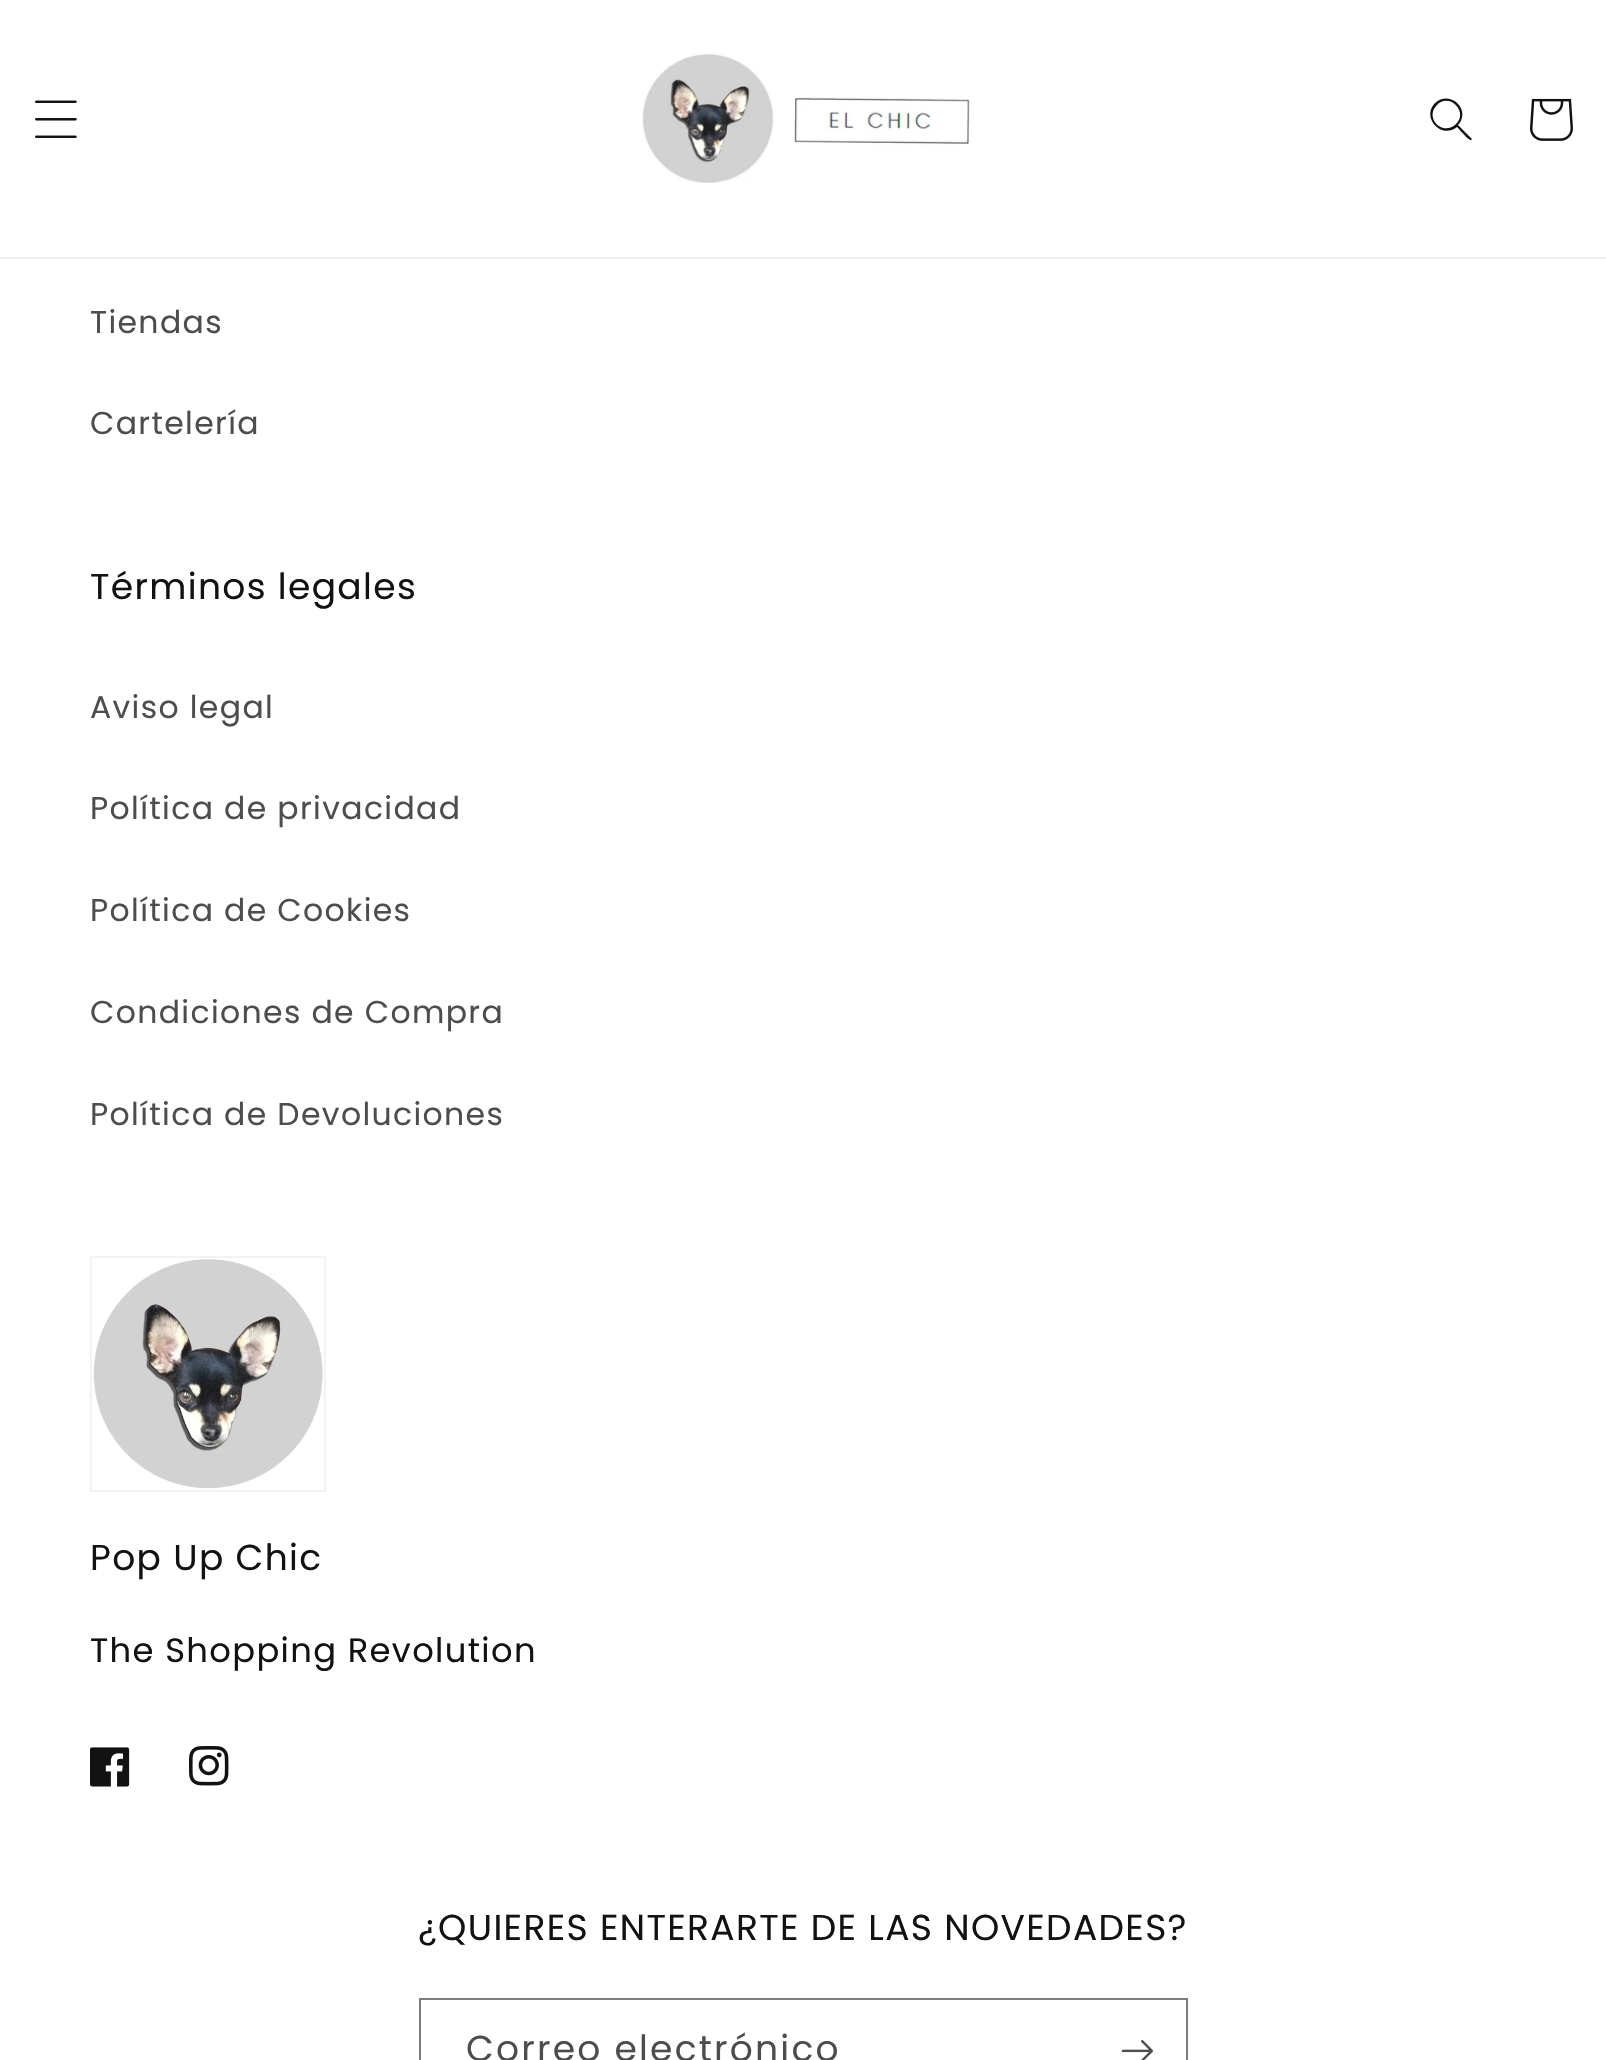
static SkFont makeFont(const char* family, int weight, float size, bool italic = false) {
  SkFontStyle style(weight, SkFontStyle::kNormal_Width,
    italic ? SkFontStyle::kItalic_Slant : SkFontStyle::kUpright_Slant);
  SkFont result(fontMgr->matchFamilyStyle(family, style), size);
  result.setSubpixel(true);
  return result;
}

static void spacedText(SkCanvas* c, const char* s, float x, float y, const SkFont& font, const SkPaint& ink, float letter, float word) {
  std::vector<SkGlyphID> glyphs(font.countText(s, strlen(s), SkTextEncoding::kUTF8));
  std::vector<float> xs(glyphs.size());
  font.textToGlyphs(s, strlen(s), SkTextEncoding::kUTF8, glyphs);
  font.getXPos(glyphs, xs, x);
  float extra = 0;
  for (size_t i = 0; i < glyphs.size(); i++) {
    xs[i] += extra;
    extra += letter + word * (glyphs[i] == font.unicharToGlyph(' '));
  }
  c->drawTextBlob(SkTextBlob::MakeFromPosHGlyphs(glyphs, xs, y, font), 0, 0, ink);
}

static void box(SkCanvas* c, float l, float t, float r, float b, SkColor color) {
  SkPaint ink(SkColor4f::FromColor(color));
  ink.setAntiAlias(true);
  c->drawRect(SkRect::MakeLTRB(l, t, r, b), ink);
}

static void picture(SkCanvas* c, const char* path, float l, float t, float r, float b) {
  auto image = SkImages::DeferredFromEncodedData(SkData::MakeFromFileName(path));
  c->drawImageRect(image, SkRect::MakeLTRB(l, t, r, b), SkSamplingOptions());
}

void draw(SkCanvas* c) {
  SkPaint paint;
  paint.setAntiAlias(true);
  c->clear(0xffffffff);
  box(c, 0, 257, 1606, 259, 0xffececec);
  picture(c, "img_01.png", 35, 100, 77, 138);
  picture(c, "img_02.png", 642, 53, 970, 183);
  paint.setColor(0xff121212);
  c->drawPath(SkPathBuilder(SkPathFillType::kEvenOdd).moveTo(1456, 124).cubicTo(1443, 137, 1424, 118, 1437, 105).cubicTo(1449, 92, 1469, 112, 1456, 124).close().moveTo(1457, 127).cubicTo(1441, 140, 1421, 117, 1435, 103).cubicTo(1450, 89, 1472, 110, 1458, 125).lineTo(1472, 139).lineTo(1471, 140).cubicTo(1469, 141, 1459, 129, 1457, 127).close().detach(), paint);
  picture(c, "img_03.png", 1530, 98, 1573, 141);
  SkFont face1 = makeFont("Poppins", 400, 31.5f);
  paint.setColor(0xff4d4d4d);
  spacedText(c, "Tiendas", 90, 333, face1, paint, 1.35f, 0);
  spacedText(c, "Cartelería", 90, 434, face1, paint, 1.35f, 0);
  SkFont face2 = makeFont("Poppins", 400, 36);
  paint.setColor(0xff121212);
  spacedText(c, "Términos legales", 90, 599, face2, paint, 1.35f, 0);
  paint.setColor(0xff4d4d4d);
  spacedText(c, "Aviso legal", 90, 718, face1, paint, 1.35f, 0);
  spacedText(c, "Política de privacidad", 90, 819, face1, paint, 1.35f, 0);
  spacedText(c, "Política de Cookies", 90, 921, face1, paint, 1.35f, 0);
  spacedText(c, "Condiciones de Compra", 90, 1023, face1, paint, 1.35f, 0);
  spacedText(c, "Política de Devoluciones", 90, 1125, face1, paint, 1.35f, 0);
  paint.setStyle(SkPaint::kStroke_Style);
  paint.setStrokeWidth(2);
  paint.setColor(0xfff3f3f3);
  c->drawRect(SkRect::MakeLTRB(91, 1257, 325, 1491), paint);
  picture(c, "img_04.png", 93, 1259, 323, 1489);
  paint.setStyle(SkPaint::kFill_Style);
  paint.setColor(0xff121212);
  spacedText(c, "Pop Up Chic", 90, 1570, face2, paint, 1.35f, 0);
  SkFont face3 = makeFont("Poppins", 400, 33.75f);
  spacedText(c, "The Shopping Revolution", 90, 1662, face3, paint, 1.35f, 0);
  picture(c, "img_05.png", 90, 1747, 130, 1787);
  picture(c, "img_06.png", 189, 1746, 229, 1786);
  spacedText(c, "¿QUIERES ENTERARTE DE LAS NOVEDADES?", 418, 1940, face2, paint, 1.35f, 0);
  paint.setStyle(SkPaint::kStroke_Style);
  paint.setColor(0xff7d7d7d);
  c->drawRect(SkRect::MakeLTRB(420, 1999, 1187, 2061), paint);
  paint.setStyle(SkPaint::kFill_Style);
  paint.setColor(0xff4d4d4d);
  spacedText(c, "Correo electrónico", 466, 2061, face2, paint, 2.25f, 0);
  picture(c, "img_07.png", 1121, 2040, 1153, 2060);
}
